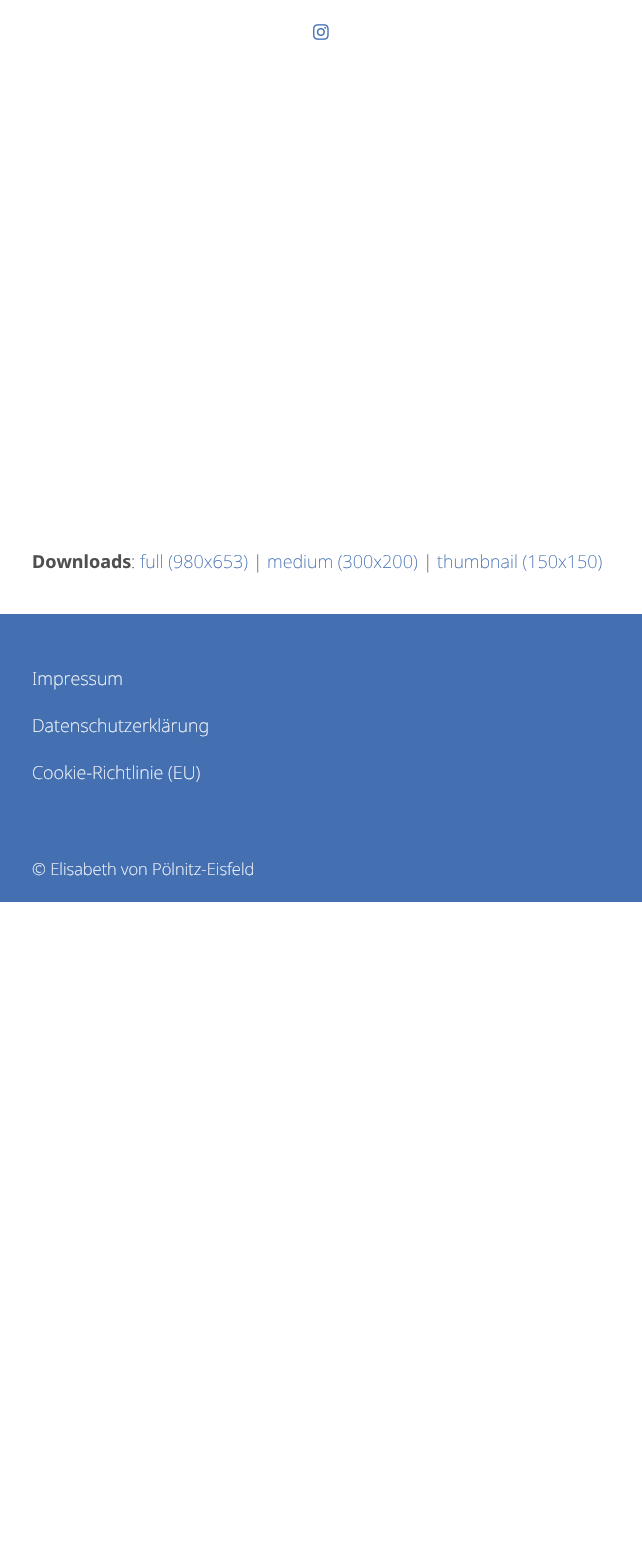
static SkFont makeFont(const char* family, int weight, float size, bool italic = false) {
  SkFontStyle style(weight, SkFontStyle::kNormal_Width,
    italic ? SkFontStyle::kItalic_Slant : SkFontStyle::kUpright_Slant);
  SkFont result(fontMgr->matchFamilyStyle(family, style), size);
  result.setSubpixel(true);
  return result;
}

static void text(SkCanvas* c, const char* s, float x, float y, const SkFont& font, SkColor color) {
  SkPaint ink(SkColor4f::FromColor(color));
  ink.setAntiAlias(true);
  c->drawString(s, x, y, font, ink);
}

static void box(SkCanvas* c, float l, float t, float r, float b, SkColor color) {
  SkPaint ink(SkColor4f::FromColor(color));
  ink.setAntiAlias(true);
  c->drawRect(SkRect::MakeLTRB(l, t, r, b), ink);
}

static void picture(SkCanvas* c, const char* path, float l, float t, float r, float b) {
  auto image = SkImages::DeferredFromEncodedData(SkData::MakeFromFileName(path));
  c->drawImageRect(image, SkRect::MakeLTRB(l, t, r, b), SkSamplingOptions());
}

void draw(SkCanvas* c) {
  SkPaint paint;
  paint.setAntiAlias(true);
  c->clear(0xffffffff);
  picture(c, "img_01.png", 313, 24, 329, 40);
  SkFont face1 = makeFont("Noto Sans", 700, 18);
  text(c, "Downloads", 32, 568, face1, 0xff4f4f4f);
  SkFont face2 = makeFont("Noto Sans", 200, 18);
  text(c, ":", 131, 568, face2, 0xff4f4f4f);
  text(c, "full (980x653)", 140, 568, face2, 0xff4470b2);
  text(c, "|", 253, 568, face2, 0xff4f4f4f);
  text(c, "medium (300x200)", 267, 568, face2, 0xff4470b2);
  text(c, "|", 423, 568, face2, 0xff4f4f4f);
  text(c, "thumbnail (150x150)", 437, 568, face2, 0xff4470b2);
  box(c, 0, 614, 642, 902, 0xff4470b2);
  text(c, "Impressum", 32, 685, face2, 0xffffffff);
  text(c, "Datenschutzerklärung", 32, 732, face2, 0xffffffff);
  text(c, "Cookie-Richtlinie (EU)", 32, 779, face2, 0xffffffff);
  SkFont face3 = makeFont("Noto Sans", 200, 16.6f);
  text(c, "© Elisabeth von Pölnitz-Eisfeld", 32, 875, face3, 0xffffffff);
}
